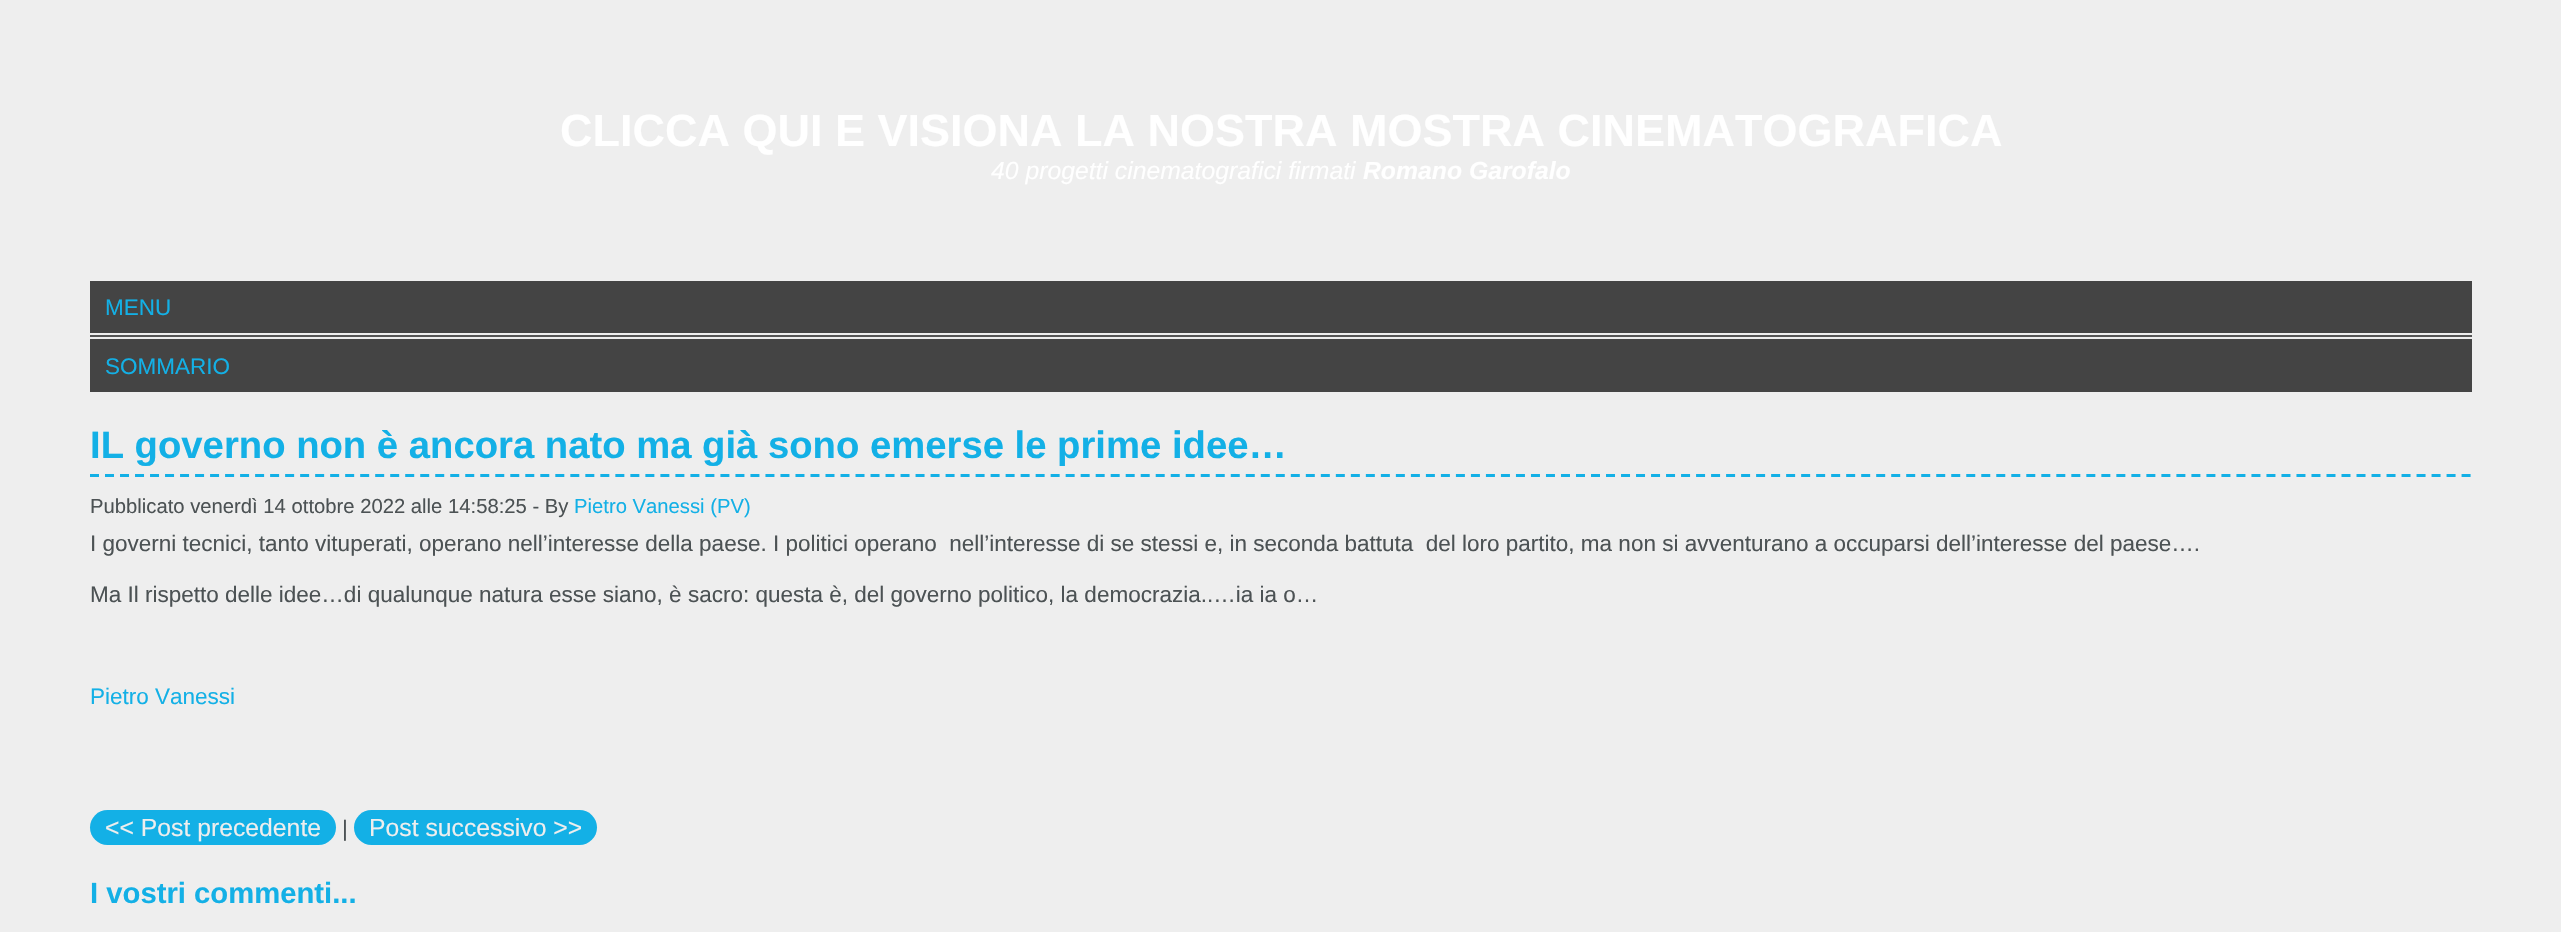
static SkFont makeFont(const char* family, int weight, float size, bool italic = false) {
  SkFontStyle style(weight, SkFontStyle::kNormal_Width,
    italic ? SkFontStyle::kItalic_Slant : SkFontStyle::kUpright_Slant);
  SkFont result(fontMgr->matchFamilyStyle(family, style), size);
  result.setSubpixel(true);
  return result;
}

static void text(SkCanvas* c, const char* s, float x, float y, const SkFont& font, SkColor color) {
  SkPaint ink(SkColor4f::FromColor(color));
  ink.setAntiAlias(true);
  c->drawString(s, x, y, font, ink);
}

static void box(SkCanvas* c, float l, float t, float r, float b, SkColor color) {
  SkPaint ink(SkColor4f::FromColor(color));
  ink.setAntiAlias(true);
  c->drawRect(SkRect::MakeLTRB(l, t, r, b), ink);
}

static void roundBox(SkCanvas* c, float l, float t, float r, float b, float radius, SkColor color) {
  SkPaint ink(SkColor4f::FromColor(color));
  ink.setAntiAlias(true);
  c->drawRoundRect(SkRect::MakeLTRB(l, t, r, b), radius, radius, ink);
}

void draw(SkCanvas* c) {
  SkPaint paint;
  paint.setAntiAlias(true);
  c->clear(0xffeeeeee);
  SkFont face1 = makeFont("Liberation Sans", 700, 45);
  text(c, "CLICCA QUI E VISIONA LA NOSTRA MOSTRA CINEMATOGRAFICA", 560, 146, face1, 0xffffffff);
  SkFont face2 = makeFont("Liberation Sans", 400, 24.75f, true);
  text(c, "40 progetti cinematografici firmati", 991, 179, face2, 0xffffffff);
  SkFont face3 = makeFont("Liberation Sans", 700, 24.75f, true);
  text(c, "Romano Garofalo", 1363, 179, face3, 0xffffffff);
  box(c, 90, 335, 2472, 337, 0xff555555);
  box(c, 90, 281, 2472, 333, 0xff444444);
  SkFont face4 = makeFont("Liberation Sans", 400, 22.5f);
  text(c, "MENU", 105, 315, face4, 0xff13b0e6);
  box(c, 90, 339, 2472, 392, 0xff444444);
  text(c, "SOMMARIO", 105, 374, face4, 0xff13b0e6);
  paint.setStyle(SkPaint::kStroke_Style);
  paint.setStrokeWidth(3);
  paint.setColor(0xff13b0e6);
  paint.setPathEffect(SkDashPathEffect::Make({{9, 6.01f}}, 0));
  c->drawPath(SkPathBuilder().moveTo(90, 475.5f).lineTo(2472, 475.5f).detach(), paint);
  paint.setPathEffect(nullptr);
  SkFont face5 = makeFont("Liberation Sans", 700, 38.25f);
  text(c, "IL governo non è ancora nato ma già sono emerse le prime idee…", 90, 458, face5, 0xff13b0e6);
  SkFont face6 = makeFont("Liberation Sans", 400, 20.25f);
  text(c, "Pubblicato venerdì 14 ottobre 2022 alle 14:58:25 - By", 90, 513, face6, 0xff4c5254);
  text(c, "Pietro Vanessi (PV)", 574, 513, face6, 0xff13b0e6);
  text(c, "I governi tecnici, tanto vituperati, operano nell’interesse della paese. I politici operano  nell’interesse di se stessi e, in seconda battuta  del loro partito, ma non si avventurano a occuparsi dell’interesse del paese….", 90, 551, face4, 0xff4c5254);
  text(c, "Ma Il rispetto delle idee…di qualunque natura esse siano, è sacro: questa è, del governo politico, la democrazia..…ia ia o…", 90, 602, face4, 0xff4c5254);
  text(c, "Pietro Vanessi", 90, 704, face4, 0xff13b0e6);
  roundBox(c, 90, 810, 336, 845, 17.5f, 0xff13b0e6);
  SkFont face7 = makeFont("Liberation Sans", 400, 24.75f);
  text(c, "<< Post precedente", 105, 836, face7, 0xffeeeeee);
  text(c, "|", 342, 836, face4, 0xff4c5254);
  roundBox(c, 354, 810, 597, 845, 17.5f, 0xff13b0e6);
  text(c, "Post successivo >>", 369, 836, face7, 0xffeeeeee);
  SkFont face8 = makeFont("Liberation Sans", 700, 29.25f);
  text(c, "I vostri commenti...", 90, 903, face8, 0xff13b0e6);
}
